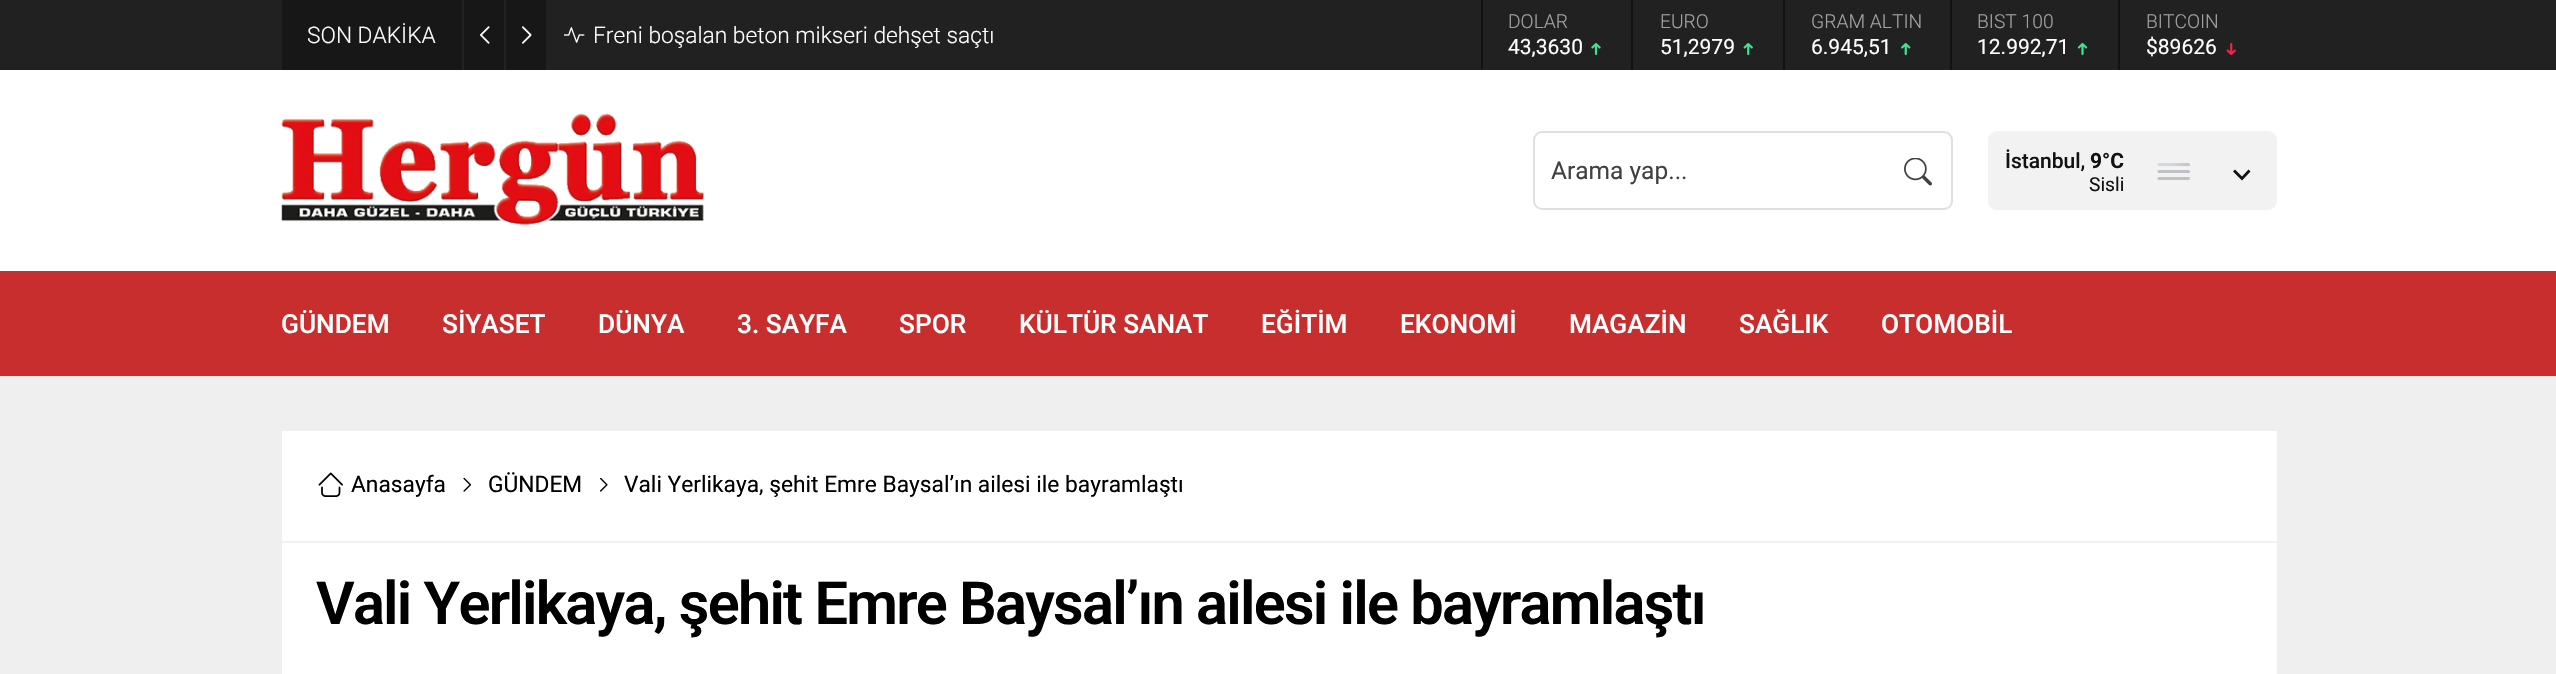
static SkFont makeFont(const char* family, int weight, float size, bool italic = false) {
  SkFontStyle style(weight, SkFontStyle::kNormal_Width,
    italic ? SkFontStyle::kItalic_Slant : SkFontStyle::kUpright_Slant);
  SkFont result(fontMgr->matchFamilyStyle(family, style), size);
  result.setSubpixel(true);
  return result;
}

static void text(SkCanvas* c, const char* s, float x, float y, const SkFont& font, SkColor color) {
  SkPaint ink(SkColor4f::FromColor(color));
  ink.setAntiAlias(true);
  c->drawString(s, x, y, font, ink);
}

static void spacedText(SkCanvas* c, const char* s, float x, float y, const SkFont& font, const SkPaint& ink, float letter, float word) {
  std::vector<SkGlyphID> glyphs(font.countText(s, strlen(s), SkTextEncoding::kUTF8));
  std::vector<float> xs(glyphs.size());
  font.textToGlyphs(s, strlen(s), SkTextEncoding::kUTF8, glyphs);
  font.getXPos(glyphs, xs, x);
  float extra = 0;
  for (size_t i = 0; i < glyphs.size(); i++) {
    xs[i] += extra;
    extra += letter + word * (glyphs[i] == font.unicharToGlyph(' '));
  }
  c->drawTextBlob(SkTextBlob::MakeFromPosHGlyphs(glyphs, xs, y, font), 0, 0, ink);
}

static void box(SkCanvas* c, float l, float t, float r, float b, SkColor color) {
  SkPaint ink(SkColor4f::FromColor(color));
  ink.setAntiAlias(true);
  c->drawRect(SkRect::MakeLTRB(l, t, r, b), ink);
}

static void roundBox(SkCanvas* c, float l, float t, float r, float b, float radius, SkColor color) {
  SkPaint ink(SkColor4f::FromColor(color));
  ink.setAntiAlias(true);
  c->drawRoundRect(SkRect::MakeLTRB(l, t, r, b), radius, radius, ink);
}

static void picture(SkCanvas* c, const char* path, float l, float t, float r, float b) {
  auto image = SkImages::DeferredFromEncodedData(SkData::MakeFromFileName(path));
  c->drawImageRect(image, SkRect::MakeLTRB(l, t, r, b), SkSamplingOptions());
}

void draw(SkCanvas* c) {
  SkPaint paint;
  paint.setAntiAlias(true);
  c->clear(0xffefefef);
  box(c, 0, 376, 2556, 378, 0xffeaeaea);
  box(c, 0, 0, 2556, 70, 0xff212121);
  box(c, 282, 0, 546, 70, 0xff171717);
  SkFont face1 = makeFont("Roboto", 300, 22.75f);
  text(c, "SON DAKİKA", 307, 43, face1, 0xffffffff);
  box(c, 462, 0, 464, 70, 0xff232323);
  picture(c, "img_01.png", 480, 26, 490, 44);
  box(c, 504, 0, 506, 70, 0xff232323);
  picture(c, "img_02.png", 522, 26, 532, 44);
  picture(c, "img_03.png", 564, 27, 585, 43);
  text(c, "Freni boşalan beton mikseri dehşet saçtı", 593, 43, face1, 0xffffffff);
  box(c, 1481, 0, 1483, 70, 0xff121212);
  SkFont face2 = makeFont("Roboto", 300, 19.25f);
  text(c, "DOLAR", 1508, 28, face2, 0xffa2a2a2);
  SkFont face3 = makeFont("Roboto", 400, 21);
  text(c, "43,3630", 1508, 54, face3, 0xffffffff);
  picture(c, "img_04.png", 1591, 43, 1601, 55);
  box(c, 1631, 0, 1633, 70, 0xff121212);
  text(c, "EURO", 1660, 28, face2, 0xffa2a2a2);
  text(c, "51,2979", 1660, 54, face3, 0xffffffff);
  picture(c, "img_05.png", 1743, 43, 1753, 55);
  box(c, 1783, 0, 1785, 70, 0xff121212);
  text(c, "GRAM ALTIN", 1811, 28, face2, 0xffa2a2a2);
  text(c, "6.945,51", 1811, 54, face3, 0xffffffff);
  picture(c, "img_06.png", 1901, 43, 1911, 55);
  box(c, 1950, 0, 1952, 70, 0xff121212);
  text(c, "BIST 100", 1977, 28, face2, 0xffa2a2a2);
  text(c, "12.992,71", 1977, 54, face3, 0xffffffff);
  picture(c, "img_07.png", 2077, 43, 2088, 55);
  box(c, 2118, 0, 2120, 70, 0xff121212);
  text(c, "BITCOIN", 2146, 28, face2, 0xffa2a2a2);
  text(c, "$89626", 2146, 54, face3, 0xffffffff);
  picture(c, "img_08.png", 2226, 43, 2236, 55);
  box(c, 0, 70, 2556, 271, 0xffffffff);
  picture(c, "img_09.png", 281, 113, 704, 225);
  paint.setStyle(SkPaint::kStroke_Style);
  paint.setStrokeWidth(2);
  paint.setColor(0xffe0e0e0);
  c->drawRoundRect(SkRect::MakeLTRB(1534, 132, 1952, 209), 8, 8, paint);
  SkFont face4 = makeFont("Roboto", 400, 24.5f);
  text(c, "Arama yap...", 1551, 179, face4, 0xff414141);
  picture(c, "img_10.png", 1904, 158, 1932, 186);
  roundBox(c, 1988, 131, 2277, 210, 9, 0xfff2f2f2);
  SkFont face5 = makeFont("Roboto", 500, 21);
  text(c, "İstanbul,", 2005, 168, face5, 0xff121212);
  SkFont face6 = makeFont("Roboto", 700, 21);
  text(c, "9°C", 2090, 168, face6, 0xff121212);
  SkFont face7 = makeFont("Roboto", 400, 19.25f);
  text(c, "Sisli", 2089, 191, face7, 0xff121212);
  paint.setStrokeWidth(3);
  paint.setStrokeCap(SkPaint::kRound_Cap);
  {
    const SkColor colors[] = {0xffd4d7dd, 0xffd4d7dd, 0xffbec1c6};
    const float stops[] = {0, 0.45f, 1};
    const SkPoint ends[] = {{2169, 157}, {2178, 172}};
    paint.setShader(SkGradientShader::MakeLinear(ends, colors, stops, 3, SkTileMode::kClamp));
    paint.setAlpha(255);
  }
  c->drawPath(SkPathBuilder().moveTo(2159, 164.5f).lineTo(2188.5f, 164.5f).detach(), paint);
  paint.setShader(nullptr);
  paint.setColor(0xffbec1c6);
  c->drawPath(SkPathBuilder().moveTo(2159, 171.5f).lineTo(2188.5f, 171.5f).moveTo(2159, 178.5f).lineTo(2188.5f, 178.5f).detach(), paint);
  paint.setStyle(SkPaint::kFill_Style);
  paint.setColor(0xff121212);
  c->drawPath(SkPathBuilder().moveTo(2248.5f, 169.5f).lineTo(2242, 176.5f).lineTo(2235, 169.5f).lineTo(2233, 171.5f).lineTo(2242, 180.5f).lineTo(2250.5f, 171.5f).close().detach(), paint);
  box(c, 0, 271, 2556, 376, 0xffc92e2f);
  SkFont face8 = makeFont("Roboto", 500, 26.25f);
  text(c, "GÜNDEM", 281, 333, face8, 0xffffffff);
  text(c, "SİYASET", 442, 333, face8, 0xffffffff);
  text(c, "DÜNYA", 598, 333, face8, 0xffffffff);
  text(c, "3. SAYFA", 737, 333, face8, 0xffffffff);
  text(c, "SPOR", 899, 333, face8, 0xffffffff);
  text(c, "KÜLTÜR SANAT", 1019, 333, face8, 0xffffffff);
  text(c, "EĞİTİM", 1261, 333, face8, 0xffffffff);
  text(c, "EKONOMİ", 1400, 333, face8, 0xffffffff);
  text(c, "MAGAZİN", 1569, 333, face8, 0xffffffff);
  text(c, "SAĞLIK", 1739, 333, face8, 0xffffffff);
  text(c, "OTOMOBİL", 1881, 333, face8, 0xffffffff);
  box(c, 282, 431, 2277, 674, 0xffffffff);
  box(c, 282, 541, 2277, 543, 0xfff1f1f1);
  picture(c, "img_11.png", 318, 472, 343, 497);
  SkFont face9 = makeFont("Roboto", 400, 22.75f);
  text(c, "Anasayfa", 351, 492, face9, 0xff000000);
  picture(c, "img_12.png", 463, 478, 472, 492);
  text(c, "GÜNDEM", 488, 492, face9, 0xff000000);
  picture(c, "img_13.png", 599, 478, 608, 492);
  text(c, "Vali Yerlikaya, şehit Emre Baysal’ın ailesi ile bayramlaştı", 624, 492, face9, 0xff000000);
  SkFont face10 = makeFont("Roboto", 600, 59.5f);
  paint.setColor(0xff000000);
  spacedText(c, "Vali Yerlikaya, şehit Emre Baysal’ın ailesi ile bayramlaştı", 316, 624, face10, paint, -1.75f, 0);
}
